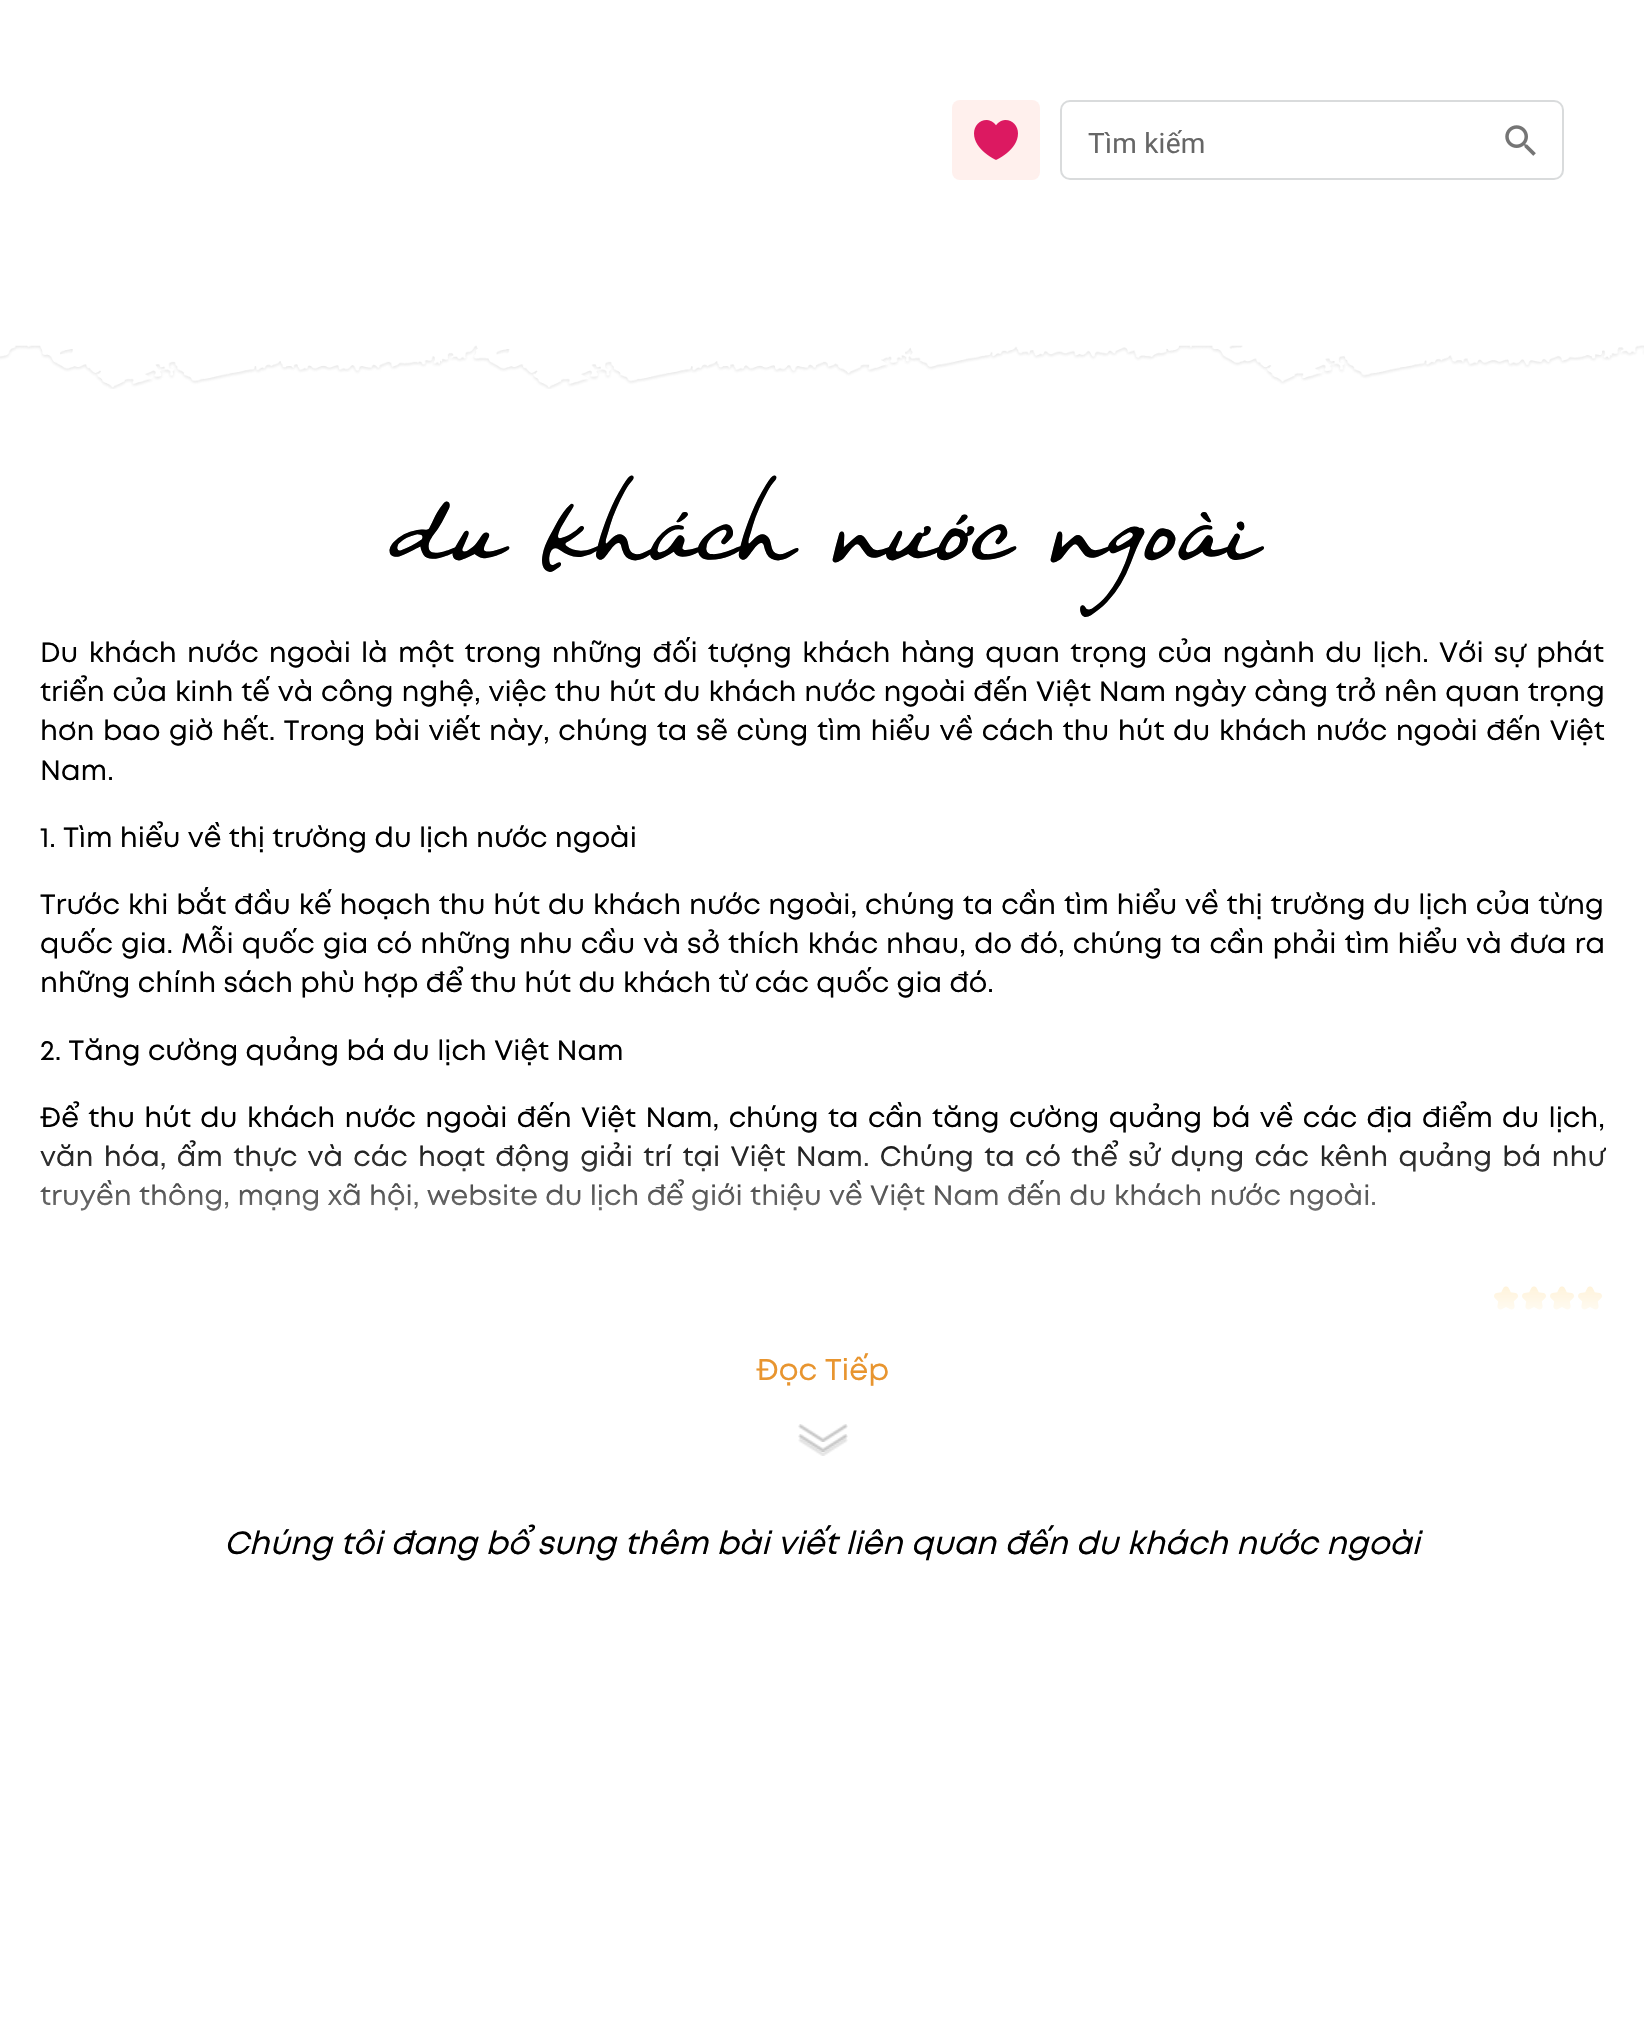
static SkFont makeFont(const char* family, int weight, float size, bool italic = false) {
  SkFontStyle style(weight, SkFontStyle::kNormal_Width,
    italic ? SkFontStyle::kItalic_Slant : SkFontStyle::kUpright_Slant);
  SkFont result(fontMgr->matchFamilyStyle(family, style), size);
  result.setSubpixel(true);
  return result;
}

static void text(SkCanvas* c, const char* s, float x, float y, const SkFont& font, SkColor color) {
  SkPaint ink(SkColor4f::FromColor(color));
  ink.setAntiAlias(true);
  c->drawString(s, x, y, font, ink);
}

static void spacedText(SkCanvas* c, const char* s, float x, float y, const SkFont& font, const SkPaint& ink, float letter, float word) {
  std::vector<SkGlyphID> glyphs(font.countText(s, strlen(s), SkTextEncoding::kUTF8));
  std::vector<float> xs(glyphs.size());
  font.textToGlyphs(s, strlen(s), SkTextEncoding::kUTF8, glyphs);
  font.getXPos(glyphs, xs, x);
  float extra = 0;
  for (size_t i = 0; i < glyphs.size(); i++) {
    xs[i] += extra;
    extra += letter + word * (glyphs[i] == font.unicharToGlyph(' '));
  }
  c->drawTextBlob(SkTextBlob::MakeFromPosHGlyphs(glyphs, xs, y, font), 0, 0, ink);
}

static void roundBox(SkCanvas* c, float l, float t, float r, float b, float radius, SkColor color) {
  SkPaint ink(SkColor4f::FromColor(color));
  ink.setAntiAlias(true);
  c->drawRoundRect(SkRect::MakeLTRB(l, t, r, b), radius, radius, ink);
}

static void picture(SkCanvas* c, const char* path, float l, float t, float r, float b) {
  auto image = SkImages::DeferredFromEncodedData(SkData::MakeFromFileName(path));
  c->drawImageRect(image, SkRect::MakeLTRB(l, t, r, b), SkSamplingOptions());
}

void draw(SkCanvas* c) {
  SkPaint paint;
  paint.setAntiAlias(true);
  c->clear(0xffffffff);
  roundBox(c, 952, 100, 1040, 180, 8, 0xfffff0ed);
  picture(c, "img_01.png", 974, 120, 1018, 160);
  paint.setStyle(SkPaint::kStroke_Style);
  paint.setStrokeWidth(2);
  paint.setColor(0xffd9dbdc);
  c->drawRoundRect(SkRect::MakeLTRB(1061, 101, 1563, 179), 9, 9, paint);
  SkFont face1 = makeFont("Roboto", 400, 28);
  paint.setStyle(SkPaint::kFill_Style);
  paint.setColor(0xff666666);
  spacedText(c, "Tìm kiếm", 1088, 153, face1, paint, 0.25f, 0);
  picture(c, "img_02.png", 1505, 125, 1536, 156);
  picture(c, "img_03.png", 0, 345, 1644, 389);
  SkFont face2 = makeFont("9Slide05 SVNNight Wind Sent", 400, 100);
  text(c, "du khách nước ngoài", 388, 560, face2, 0xff000000);
  SkFont face3 = makeFont("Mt", 400, 28);
  paint.setColor(0xff000000);
  spacedText(c, "Du khách nước ngoài là một trong những đối tượng khách hàng quan trọng của ngành du lịch. Với sự phát", 40, 662, face3, paint, 0, 2.9f);
  spacedText(c, "triển của kinh tế và công nghệ, việc thu hút du khách nước ngoài đến Việt Nam ngày càng trở nên quan trọng", 40, 701, face3, paint, 0, 0.4f);
  spacedText(c, "hơn bao giờ hết. Trong bài viết này, chúng ta sẽ cùng tìm hiểu về cách thu hút du khách nước ngoài đến Việt", 40, 740, face3, paint, 0, 1.2f);
  text(c, "Nam.", 40, 780, face3, 0xff000000);
  text(c, "1. Tìm hiểu về thị trường du lịch nước ngoài", 40, 847, face3, 0xff000000);
  spacedText(c, "Trước khi bắt đầu kế hoạch thu hút du khách nước ngoài, chúng ta cần tìm hiểu về thị trường du lịch của từng", 40, 914, face3, paint, 0, 0.5f);
  spacedText(c, "quốc gia. Mỗi quốc gia có những nhu cầu và sở thích khác nhau, do đó, chúng ta cần phải tìm hiểu và đưa ra", 40, 953, face3, paint, 0, 0.75f);
  text(c, "những chính sách phù hợp để thu hút du khách từ các quốc gia đó.", 40, 992, face3, 0xff000000);
  text(c, "2. Tăng cường quảng bá du lịch Việt Nam", 40, 1060, face3, 0xff000000);
  spacedText(c, "Để thu hút du khách nước ngoài đến Việt Nam, chúng ta cần tăng cường quảng bá về các địa điểm du lịch,", 40, 1127, face3, paint, 0, 2);
  spacedText(c, "văn hóa, ẩm thực và các hoạt động giải trí tại Việt Nam. Chúng ta có thể sử dụng các kênh quảng bá như", 40, 1166, face3, paint, 0, 2.9f);
  text(c, "truyền thông, mạng xã hội, website du lịch để giới thiệu về Việt Nam đến du khách nước ngoài.", 40, 1205, face3, 0xff000000);
  picture(c, "img_04.png", 1494, 1286, 1519, 1310);
  picture(c, "img_04.png", 1522, 1286, 1547, 1310);
  picture(c, "img_04.png", 1550, 1286, 1575, 1310);
  picture(c, "img_04.png", 1578, 1286, 1603, 1310);
  {
    const SkColor colors[] = {0x00ffffff, 0xffffffff, 0xffffffff};
    const float stops[] = {0, 0.5f, 1};
    const SkPoint ends[] = {{822, 1124}, {822, 1524}};
    paint.setShader(SkGradientShader::MakeLinear(ends, colors, stops, 3, SkTileMode::kClamp));
    paint.setAlpha(255);
  }
  c->drawRect(SkRect::MakeLTRB(40, 1128, 1605, 1310), paint);
  SkFont face4 = makeFont("Mt", 400, 30);
  text(c, "Đọc Tiếp", 756, 1380, face4, 0xffe8952f);
  picture(c, "img_05.png", 798, 1434, 848, 1452);
  picture(c, "img_06.png", 798, 1424, 848, 1442);
  picture(c, "img_07.png", 798, 1438, 848, 1456);
  SkFont face5 = makeFont("Mt", 400, 32, true);
  text(c, "Chúng tôi đang bổ sung thêm bài viết liên quan đến du khách nước ngoài", 224, 1554, face5, 0xff000000);
}
